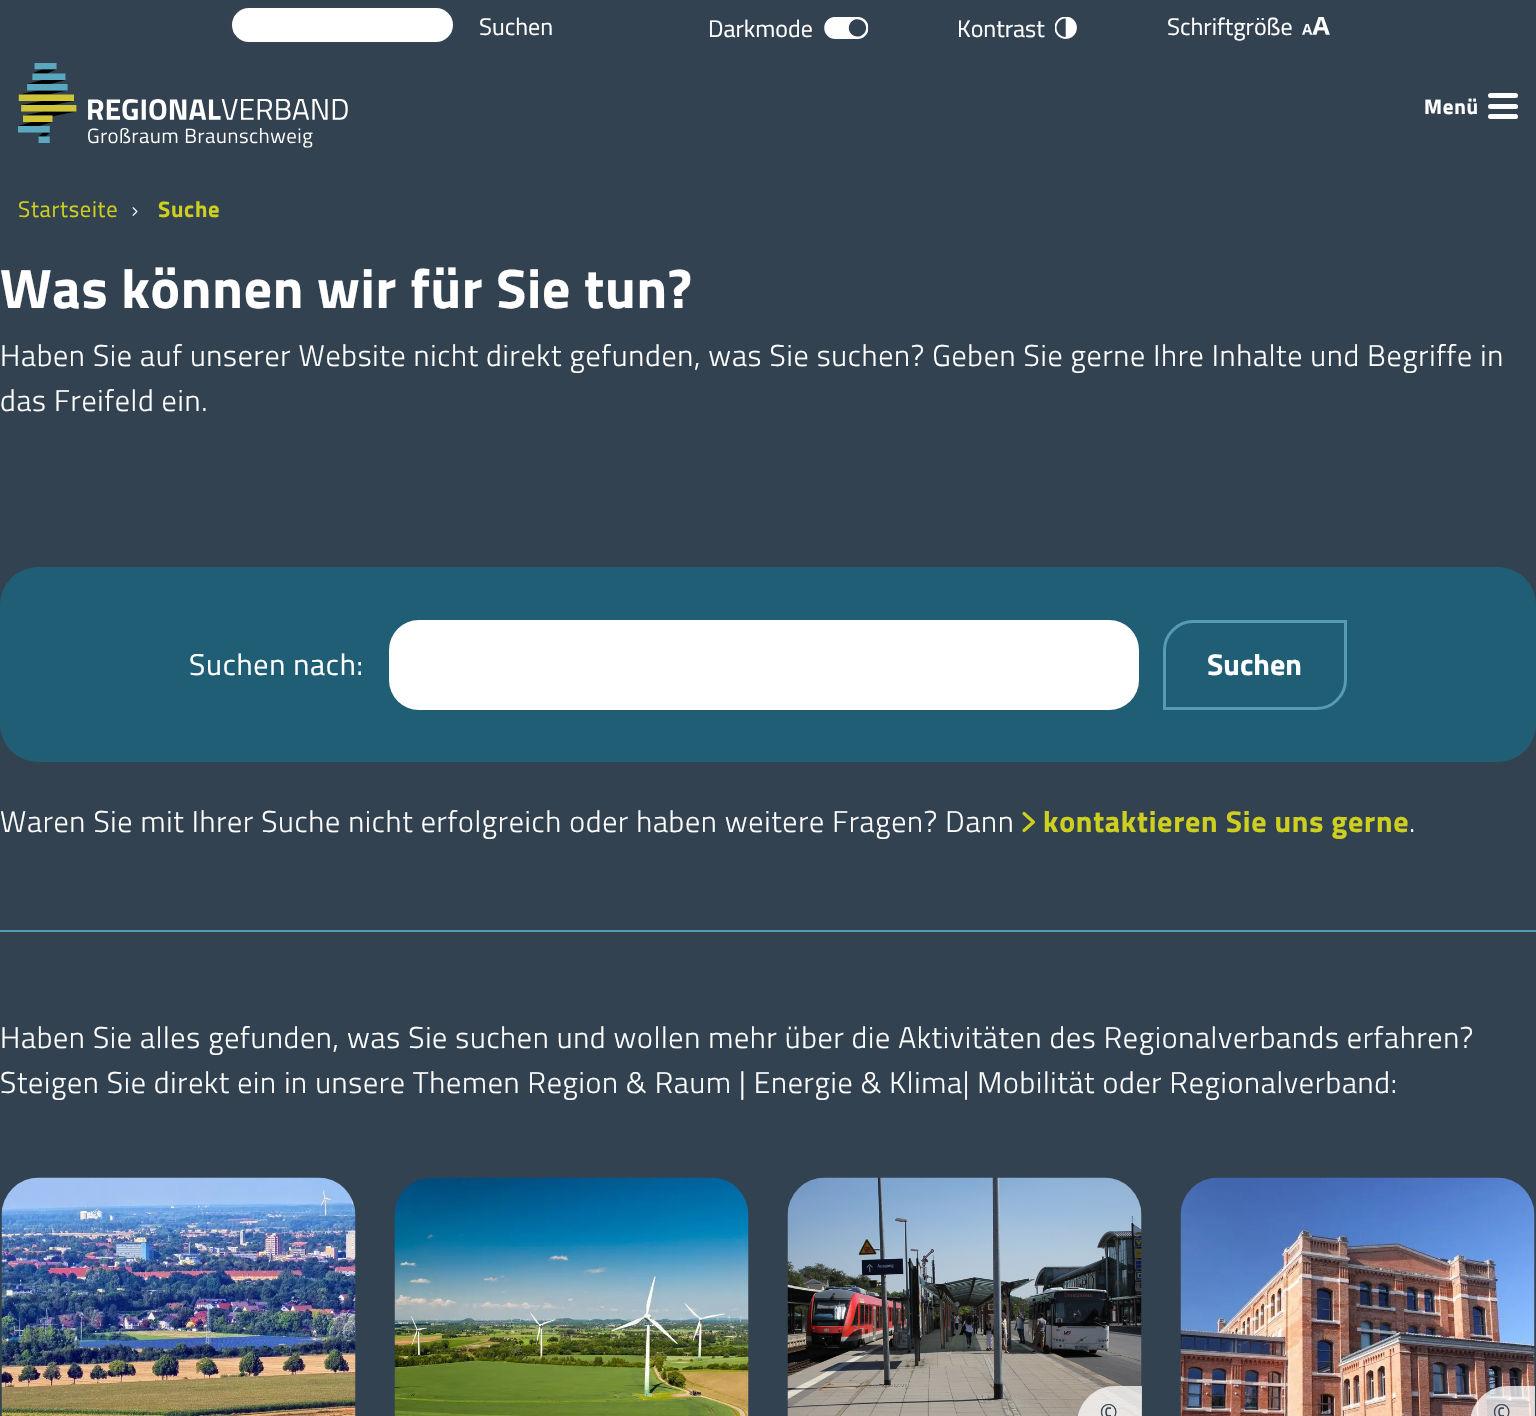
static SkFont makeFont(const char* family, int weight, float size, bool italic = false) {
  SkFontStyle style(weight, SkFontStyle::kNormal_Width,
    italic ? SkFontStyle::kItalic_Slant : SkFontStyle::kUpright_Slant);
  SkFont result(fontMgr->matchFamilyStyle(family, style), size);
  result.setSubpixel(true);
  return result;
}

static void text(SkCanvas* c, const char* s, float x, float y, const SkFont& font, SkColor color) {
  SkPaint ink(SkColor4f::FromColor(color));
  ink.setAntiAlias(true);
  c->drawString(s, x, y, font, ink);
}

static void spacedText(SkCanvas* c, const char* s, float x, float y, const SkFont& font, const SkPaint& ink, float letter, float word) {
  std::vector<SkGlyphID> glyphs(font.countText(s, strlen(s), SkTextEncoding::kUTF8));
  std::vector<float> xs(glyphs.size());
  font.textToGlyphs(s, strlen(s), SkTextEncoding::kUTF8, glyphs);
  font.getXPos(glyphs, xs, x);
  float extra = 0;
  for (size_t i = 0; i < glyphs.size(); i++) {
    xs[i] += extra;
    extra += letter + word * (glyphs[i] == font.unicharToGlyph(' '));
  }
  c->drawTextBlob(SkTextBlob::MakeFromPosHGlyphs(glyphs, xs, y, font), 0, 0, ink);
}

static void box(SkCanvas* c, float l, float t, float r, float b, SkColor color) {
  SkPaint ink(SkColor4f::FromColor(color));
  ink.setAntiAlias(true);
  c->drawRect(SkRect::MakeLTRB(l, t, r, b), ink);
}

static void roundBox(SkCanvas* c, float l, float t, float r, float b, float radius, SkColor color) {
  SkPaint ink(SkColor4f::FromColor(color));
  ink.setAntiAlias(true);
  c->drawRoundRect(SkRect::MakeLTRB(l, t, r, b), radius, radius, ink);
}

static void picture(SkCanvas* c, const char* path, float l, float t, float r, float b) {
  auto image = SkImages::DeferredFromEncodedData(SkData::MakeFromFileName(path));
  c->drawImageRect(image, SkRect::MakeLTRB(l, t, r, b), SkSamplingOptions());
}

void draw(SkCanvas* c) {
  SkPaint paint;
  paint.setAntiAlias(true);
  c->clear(0xff334251);
  paint.setColor(0xffffffff);
  c->drawRoundRect(SkRect::MakeLTRB(231, 7, 454, 43), 18, 18, paint);
  paint.setStyle(SkPaint::kStroke_Style);
  paint.setStrokeWidth(2);
  paint.setColor(0xff334352);
  c->drawRoundRect(SkRect::MakeLTRB(231, 7, 454, 43), 18, 18, paint);
  SkFont face1 = makeFont("Titillium Web", 400, 24);
  text(c, "Suchen", 479, 35, face1, 0xffffffff);
  text(c, "Darkmode", 708, 37, face1, 0xffffffff);
  picture(c, "img_01.png", 824, 17, 869, 39);
  text(c, "Kontrast", 957, 37, face1, 0xffffffff);
  picture(c, "img_02.png", 1055, 17, 1077, 39);
  text(c, "Schriftgröße", 1167, 35, face1, 0xffffffff);
  picture(c, "img_03.png", 1302, 17, 1330, 35);
  picture(c, "img_04.png", 18, 63, 348, 148);
  SkFont face2 = makeFont("Titillium Web", 700, 21);
  paint.setStyle(SkPaint::kFill_Style);
  paint.setColor(0xffffffff);
  spacedText(c, "Menü", 1424, 114, face2, paint, 0.72f, 0);
  roundBox(c, 1488, 104, 1518, 109, 2.5f, 0xffffffff);
  roundBox(c, 1488, 93, 1518, 98, 2.5f, 0xffffffff);
  roundBox(c, 1488, 114, 1518, 119, 2.5f, 0xffffffff);
  SkFont face3 = makeFont("Titillium Web", 400, 22.5f);
  paint.setColor(0xffcecf1f);
  spacedText(c, "Startseite", 18, 217, face3, paint, 0.72f, 0);
  picture(c, "img_05.png", 132, 207, 138, 216);
  SkFont face4 = makeFont("Titillium Web", 700, 22.5f);
  spacedText(c, "Suche", 158, 217, face4, paint, 0.72f, 0);
  SkFont face5 = makeFont("Titillium Web", 700, 55.5f);
  paint.setColor(0xffffffff);
  spacedText(c, "Was können wir für Sie tun?", 0, 308, face5, paint, 0.72f, 0);
  SkFont face6 = makeFont("Titillium Web", 300, 30);
  spacedText(c, "Haben Sie auf unserer Website nicht direkt gefunden, was Sie suchen? Geben Sie gerne Ihre Inhalte und Begriffe in", 0, 366, face6, paint, 0.72f, 0);
  spacedText(c, "das Freifeld ein.", 0, 411, face6, paint, 0.72f, 0);
  roundBox(c, 0, 567, 1536, 762, 38, 0xff205e76);
  SkFont face7 = makeFont("Titillium Web", 400, 30);
  spacedText(c, "Suchen nach:", 189, 675, face7, paint, 0.72f, 0);
  roundBox(c, 389, 620, 1139, 710, 30, 0xffffffff);
  paint.setStyle(SkPaint::kStroke_Style);
  paint.setStrokeWidth(3);
  paint.setColor(0xff589bb5);
  c->drawPath(SkPathBuilder().moveTo(1193, 621.5f).lineTo(1345.5f, 621.5f).lineTo(1345.5f, 680).cubicTo(1345.5f, 695.5f, 1332.5f, 708.5f, 1317, 708.5f).lineTo(1164.5f, 708.5f).lineTo(1164.5f, 650).cubicTo(1164.5f, 634.5f, 1177.5f, 621.5f, 1193, 621.5f).close().detach(), paint);
  SkFont face8 = makeFont("Titillium Web", 700, 30);
  text(c, "Suchen", 1207, 675, face8, 0xffffffff);
  paint.setStyle(SkPaint::kFill_Style);
  paint.setColor(0xffffffff);
  spacedText(c, "Waren Sie mit Ihrer Suche nicht erfolgreich oder haben weitere Fragen? Dann", 0, 832, face6, paint, 0.72f, 0);
  paint.setStyle(SkPaint::kStroke_Style);
  paint.setStrokeWidth(3.1f);
  paint.setStrokeCap(SkPaint::kRound_Cap);
  paint.setStrokeJoin(SkPaint::kRound_Join);
  paint.setColor(0xffcecf1f);
  c->drawPath(SkPathBuilder().moveTo(1024, 830.5f).lineTo(1033.5f, 822).lineTo(1024, 813.5f).detach(), paint);
  paint.setStyle(SkPaint::kFill_Style);
  spacedText(c, "kontaktieren Sie uns gerne", 1043, 832, face8, paint, 0.72f, 0);
  paint.setColor(0xffffffff);
  spacedText(c, ".", 1409, 832, face6, paint, 0.72f, 0);
  box(c, 0, 930, 1536, 932, 0xff589bb5);
  spacedText(c, "Haben Sie alles gefunden, was Sie suchen und wollen mehr über die Aktivitäten des Regionalverbands erfahren?", 0, 1048, face6, paint, 0.72f, 0);
  spacedText(c, "Steigen Sie direkt ein in unsere Themen Region & Raum | Energie & Klima| Mobilität oder Regionalverband:", 0, 1093, face6, paint, 0.72f, 0);
  picture(c, "img_06.png", 1, 1177, 356, 1416);
  picture(c, "img_07.png", 394, 1177, 749, 1416);
  picture(c, "img_08.png", 787, 1177, 1142, 1416);
  paint.setColor(0xbfffffff);
  c->drawPath(SkPathBuilder().moveTo(1115, 1386).lineTo(1142, 1386).lineTo(1142, 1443).lineTo(1077, 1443).lineTo(1077, 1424).cubicTo(1077, 1403, 1094, 1386, 1115, 1386).close().detach(), paint);
  paint.setColor(0xff334352);
  spacedText(c, "©", 1099, 1425, face6, paint, 0.72f, 0);
  picture(c, "img_09.png", 1180, 1177, 1535, 1416);
  paint.setColor(0xbfffffff);
  c->drawPath(SkPathBuilder().moveTo(1508, 1386).lineTo(1535, 1386).lineTo(1535, 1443).lineTo(1470, 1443).lineTo(1470, 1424).cubicTo(1470, 1403, 1487, 1386, 1508, 1386).close().detach(), paint);
  paint.setColor(0xff334352);
  spacedText(c, "©", 1492, 1425, face6, paint, 0.72f, 0);
}
